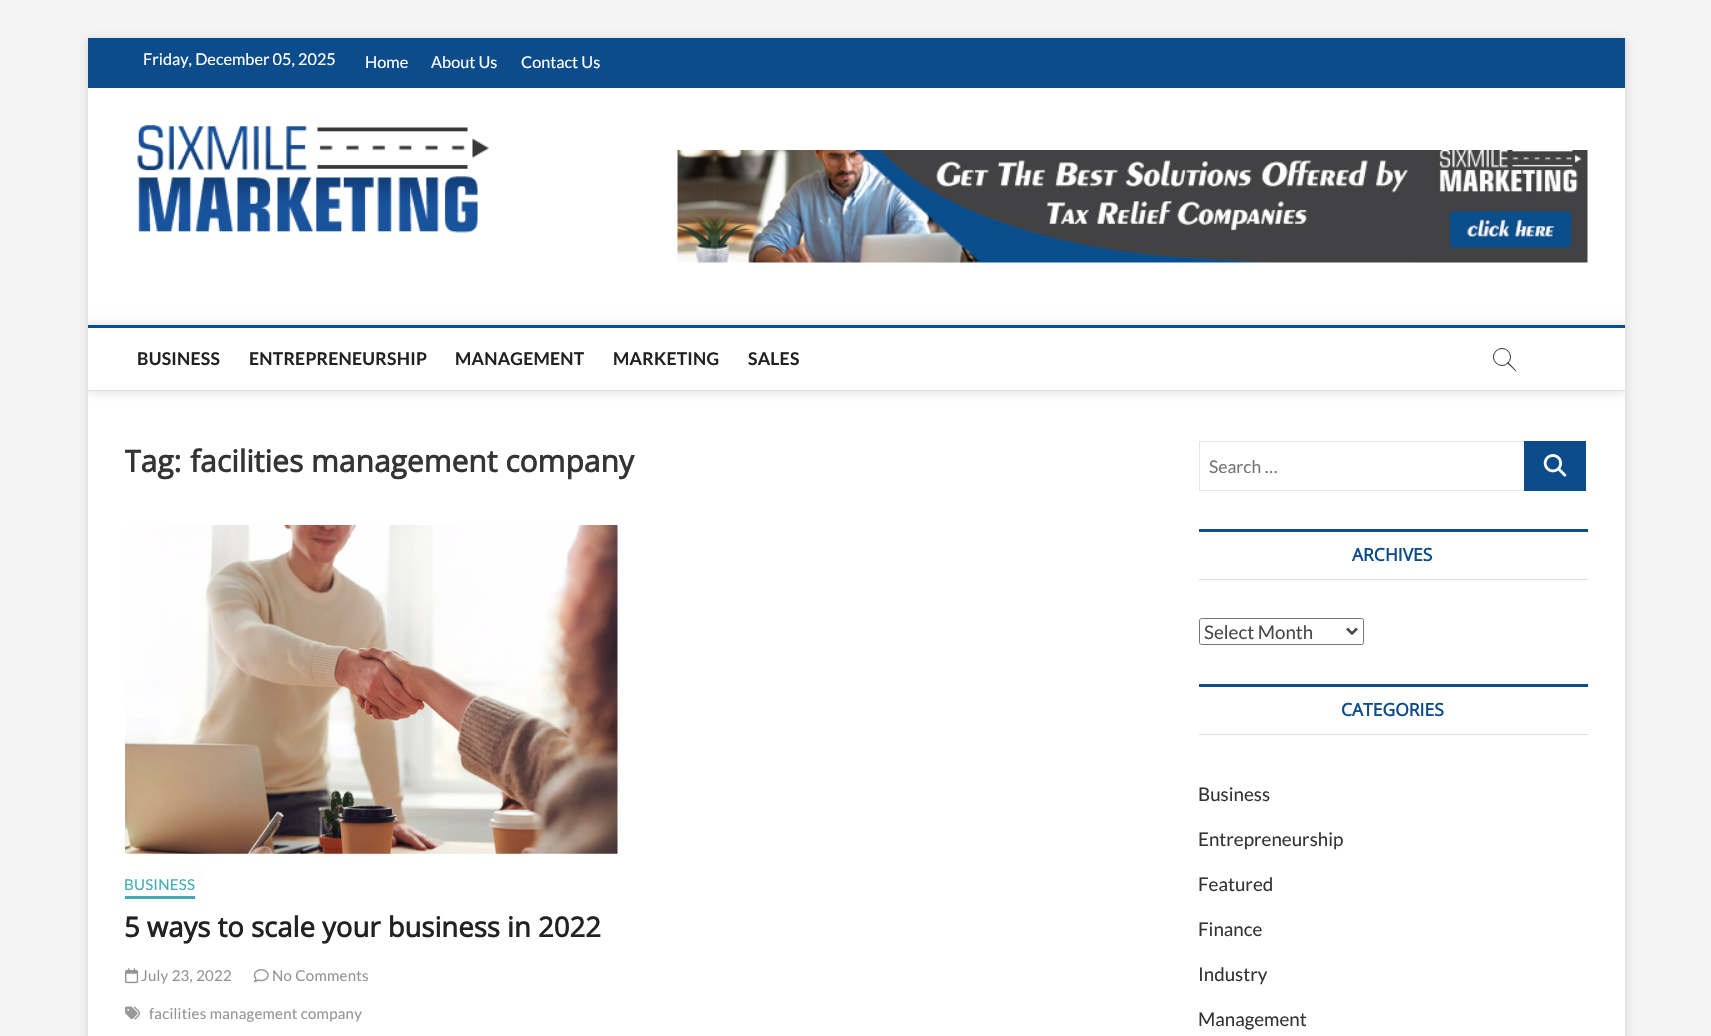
static SkFont makeFont(const char* family, int weight, float size, bool italic = false) {
  SkFontStyle style(weight, SkFontStyle::kNormal_Width,
    italic ? SkFontStyle::kItalic_Slant : SkFontStyle::kUpright_Slant);
  SkFont result(fontMgr->matchFamilyStyle(family, style), size);
  result.setSubpixel(true);
  return result;
}

static void text(SkCanvas* c, const char* s, float x, float y, const SkFont& font, SkColor color) {
  SkPaint ink(SkColor4f::FromColor(color));
  ink.setAntiAlias(true);
  c->drawString(s, x, y, font, ink);
}

static void spacedText(SkCanvas* c, const char* s, float x, float y, const SkFont& font, const SkPaint& ink, float letter, float word) {
  std::vector<SkGlyphID> glyphs(font.countText(s, strlen(s), SkTextEncoding::kUTF8));
  std::vector<float> xs(glyphs.size());
  font.textToGlyphs(s, strlen(s), SkTextEncoding::kUTF8, glyphs);
  font.getXPos(glyphs, xs, x);
  float extra = 0;
  for (size_t i = 0; i < glyphs.size(); i++) {
    xs[i] += extra;
    extra += letter + word * (glyphs[i] == font.unicharToGlyph(' '));
  }
  c->drawTextBlob(SkTextBlob::MakeFromPosHGlyphs(glyphs, xs, y, font), 0, 0, ink);
}

static void box(SkCanvas* c, float l, float t, float r, float b, SkColor color) {
  SkPaint ink(SkColor4f::FromColor(color));
  ink.setAntiAlias(true);
  c->drawRect(SkRect::MakeLTRB(l, t, r, b), ink);
}

static void picture(SkCanvas* c, const char* path, float l, float t, float r, float b) {
  auto image = SkImages::DeferredFromEncodedData(SkData::MakeFromFileName(path));
  c->drawImageRect(image, SkRect::MakeLTRB(l, t, r, b), SkSamplingOptions());
}

void draw(SkCanvas* c) {
  SkPaint paint;
  paint.setAntiAlias(true);
  c->clear(0xfff4f4f4);
  paint.setColor(0x26000000);
  paint.setMaskFilter(SkMaskFilter::MakeBlur(kNormal_SkBlurStyle, 4));
  c->drawRect(SkRect::MakeLTRB(88, 39, 1625, 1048), paint);
  paint.setMaskFilter(nullptr);
  box(c, 88, 88, 1625, 1036, 0xffffffff);
  box(c, 88, 38, 1625, 88, 0xff0c4c8a);
  SkFont face1 = makeFont("Lato", 400, 16.25f);
  text(c, "Friday, December 05, 2025", 143, 65, face1, 0xffffffff);
  text(c, "Home", 365, 68, face1, 0xffffffff);
  text(c, "About Us", 431, 68, face1, 0xffffffff);
  text(c, "Contact Us", 521, 68, face1, 0xffffffff);
  picture(c, "img_01.png", 137, 125, 489, 233);
  picture(c, "img_02.png", 677, 150, 1588, 263);
  c->save();
  c->clipRect(SkRect::MakeLTRB(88, 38, 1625, 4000));
  c->clipPath(SkPathBuilder(SkPathFillType::kEvenOdd).moveTo(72, 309).lineTo(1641, 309).lineTo(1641, 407).lineTo(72, 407).close().moveTo(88, 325).lineTo(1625, 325).lineTo(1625, 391).lineTo(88, 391).close().detach(), true);
  paint.setMaskFilter(SkMaskFilter::MakeBlur(kNormal_SkBlurStyle, 5));
  c->drawRect(SkRect::MakeLTRB(88, 325, 1625, 391), paint);
  paint.setMaskFilter(nullptr);
  c->restore();
  box(c, 88, 325, 1625, 328, 0xff0c4c8a);
  box(c, 88, 390, 1625, 391, 0xffdddddd);
  SkFont face2 = makeFont("Lato", 700, 17.5f);
  paint.setColor(0xff222222);
  spacedText(c, "BUSINESS", 137, 365, face2, paint, 0.25f, 0);
  spacedText(c, "ENTREPRENEURSHIP", 249, 365, face2, paint, 0.25f, 0);
  spacedText(c, "MANAGEMENT", 455, 365, face2, paint, 0.25f, 0);
  spacedText(c, "MARKETING", 613, 365, face2, paint, 0.25f, 0);
  spacedText(c, "SALES", 748, 365, face2, paint, 0.25f, 0);
  paint.setStyle(SkPaint::kStroke_Style);
  paint.setStrokeWidth(1);
  paint.setColor(0xff333333);
  c->drawCircle(1502, 357, 8.5f, paint);
  paint.setStyle(SkPaint::kFill_Style);
  c->drawPath(SkPathBuilder().moveTo(1507, 363).lineTo(1508, 362).lineTo(1516.5f, 371).lineTo(1516, 371.5f).close().detach(), paint);
  c->save();
  c->clipRect(SkRect::MakeLTRB(125, 441, 1149, 525));
  SkFont face3 = makeFont("Open Sans", 700, 30);
  text(c, "Tag:", 124, 472, face3, 0xff343434);
  c->restore();
  text(c, "facilities management company", 190, 472, face3, 0xff343434);
  picture(c, "img_03.png", 125, 525, 618, 854);
  SkFont face4 = makeFont("Lato", 400, 15);
  paint.setColor(0xff42adb6);
  spacedText(c, "BUSINESS", 124, 890, face4, paint, 0.25f, 0);
  box(c, 125, 896, 195, 899, 0xff42adb6);
  SkFont face5 = makeFont("Open Sans", 700, 27.5f);
  text(c, "5 ways to scale your business in 2022", 124, 937, face5, 0xff222222);
  picture(c, "img_04.png", 125, 968, 139, 984);
  paint.setColor(0xff949494);
  spacedText(c, "July 23, 2022", 141, 981, face4, paint, 0.25f, 0);
  picture(c, "img_05.png", 253, 969, 269, 983);
  spacedText(c, "No Comments", 272, 981, face4, paint, 0.25f, 0);
  picture(c, "img_06.png", 125, 1006, 140, 1020);
  spacedText(c, "facilities management company", 149, 1019, face4, paint, 0.25f, 0);
  paint.setStyle(SkPaint::kStroke_Style);
  paint.setColor(0xffe6e6e6);
  c->drawRect(SkRect::MakeLTRB(1199.5f, 441.5f, 1524.5f, 490.5f), paint);
  SkFont face6 = makeFont("Lato", 400, 17.5f);
  text(c, "Search …", 1209, 473, face6, 0xff757575);
  box(c, 1524, 441, 1586, 491, 0xff0c4c8a);
  picture(c, "img_07.png", 1543, 454, 1567, 477);
  box(c, 1199, 529, 1588, 532, 0xff0c4c8a);
  box(c, 1199, 579, 1588, 580, 0xffdddddd);
  SkFont face7 = makeFont("Open Sans", 700, 17.5f);
  text(c, "ARCHIVES", 1352, 561, face7, 0xff0c4c8a);
  paint.setColor(0xff767676);
  c->drawRoundRect(SkRect::MakeLTRB(1199.5f, 618.5f, 1363.5f, 644.5f), 2, 2, paint);
  paint.setStrokeWidth(2.5f);
  paint.setColor(0xff484848);
  c->drawPath(SkPathBuilder().moveTo(1347, 628.5f).lineTo(1352, 633.5f).lineTo(1357, 628.5f).detach(), paint);
  SkFont face8 = makeFont("Lato", 400, 18.75f);
  text(c, "Select Month", 1204, 639, face8, 0xff484848);
  box(c, 1199, 684, 1588, 687, 0xff0c4c8a);
  box(c, 1199, 734, 1588, 735, 0xffdddddd);
  text(c, "CATEGORIES", 1341, 716, face7, 0xff0c4c8a);
  text(c, "Business", 1198, 801, face8, 0xff343434);
  text(c, "Entrepreneurship", 1198, 846, face8, 0xff343434);
  text(c, "Featured", 1198, 891, face8, 0xff343434);
  text(c, "Finance", 1198, 936, face8, 0xff343434);
  text(c, "Industry", 1198, 981, face8, 0xff343434);
  text(c, "Management", 1198, 1026, face8, 0xff343434);
}
